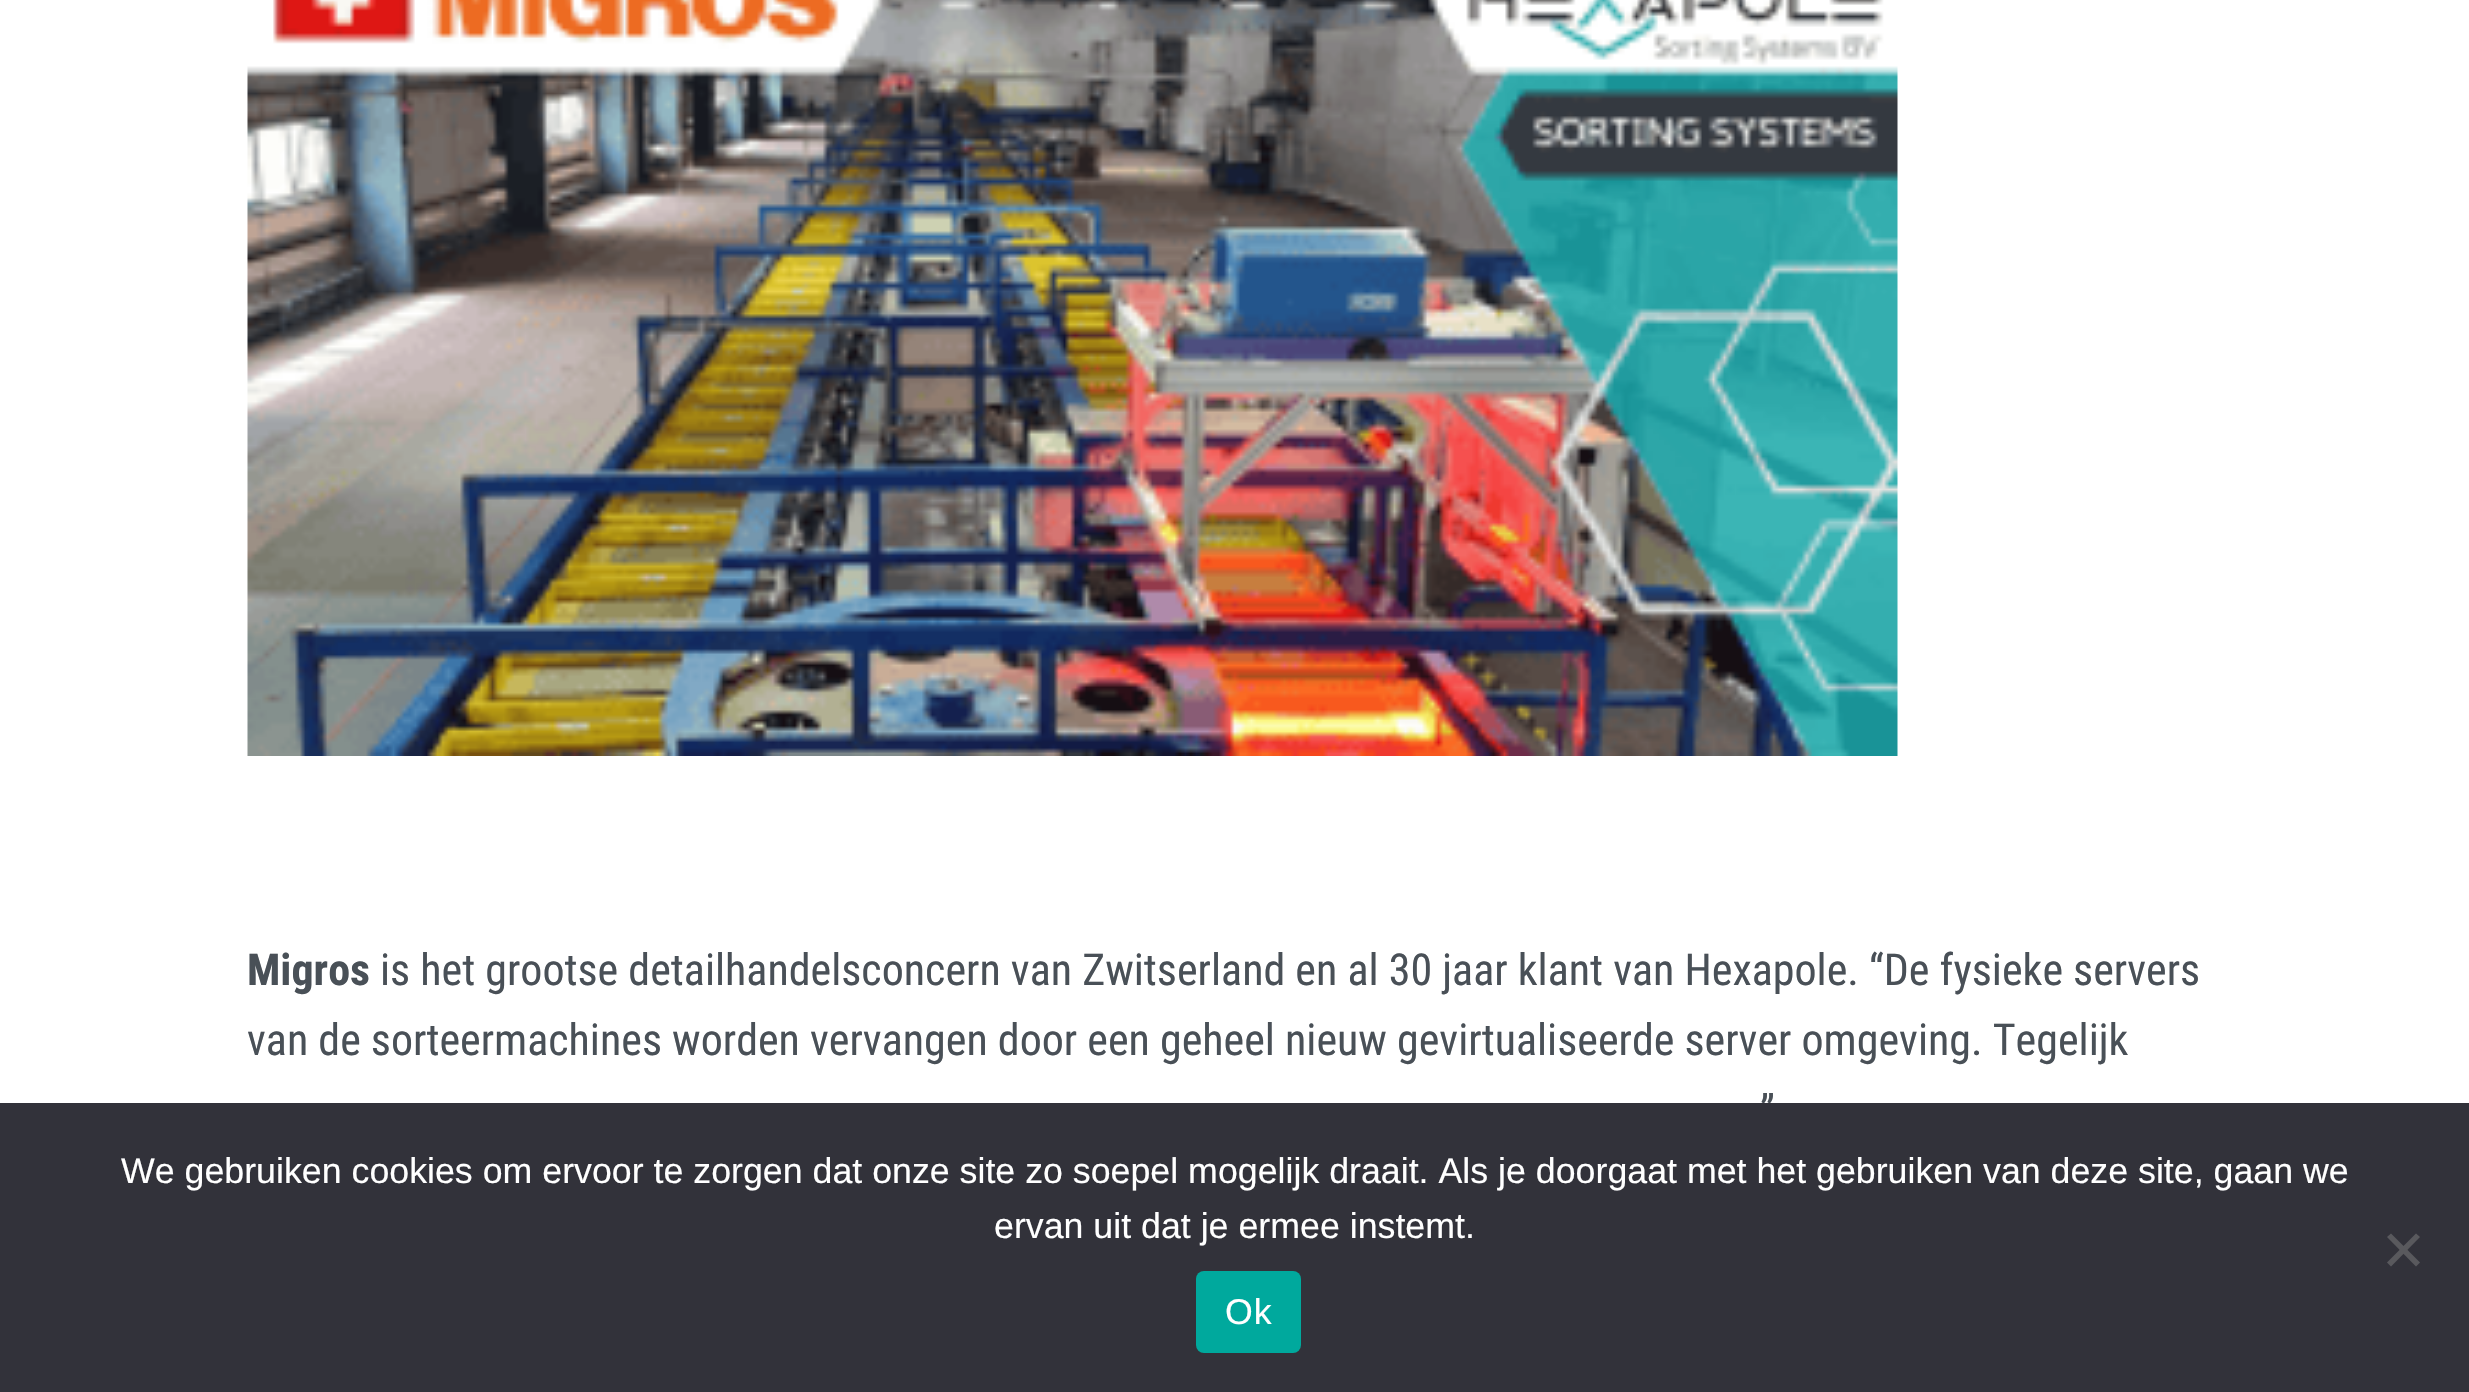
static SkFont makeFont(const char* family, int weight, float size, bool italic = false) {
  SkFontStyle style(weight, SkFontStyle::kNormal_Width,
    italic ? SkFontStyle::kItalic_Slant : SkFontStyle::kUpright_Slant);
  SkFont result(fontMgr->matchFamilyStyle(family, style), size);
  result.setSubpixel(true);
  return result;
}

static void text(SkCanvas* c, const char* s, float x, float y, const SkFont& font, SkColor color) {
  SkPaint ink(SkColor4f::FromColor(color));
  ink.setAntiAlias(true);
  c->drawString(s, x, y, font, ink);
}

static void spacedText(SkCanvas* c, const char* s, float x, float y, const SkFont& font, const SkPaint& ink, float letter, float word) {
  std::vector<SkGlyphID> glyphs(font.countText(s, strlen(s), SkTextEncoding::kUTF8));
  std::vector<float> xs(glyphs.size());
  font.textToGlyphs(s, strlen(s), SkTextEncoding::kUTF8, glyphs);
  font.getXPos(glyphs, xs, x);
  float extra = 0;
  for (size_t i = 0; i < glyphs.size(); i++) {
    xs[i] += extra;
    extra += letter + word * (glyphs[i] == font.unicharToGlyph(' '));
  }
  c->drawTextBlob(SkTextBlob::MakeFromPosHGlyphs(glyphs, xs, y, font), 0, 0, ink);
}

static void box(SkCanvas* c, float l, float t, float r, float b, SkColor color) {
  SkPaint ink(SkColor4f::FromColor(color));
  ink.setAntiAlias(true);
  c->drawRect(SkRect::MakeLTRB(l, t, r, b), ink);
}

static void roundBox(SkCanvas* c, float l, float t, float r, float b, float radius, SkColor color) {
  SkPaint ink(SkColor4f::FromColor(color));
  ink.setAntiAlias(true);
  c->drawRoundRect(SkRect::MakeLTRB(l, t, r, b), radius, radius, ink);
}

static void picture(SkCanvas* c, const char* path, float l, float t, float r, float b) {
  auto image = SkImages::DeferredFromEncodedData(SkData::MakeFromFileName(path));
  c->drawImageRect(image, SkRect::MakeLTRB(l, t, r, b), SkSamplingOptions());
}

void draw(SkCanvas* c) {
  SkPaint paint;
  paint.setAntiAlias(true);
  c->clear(0xffffffff);
  picture(c, "img_01.png", 247, 0, 1898, 756);
  SkFont face1 = makeFont("Roboto Condensed", 700, 44);
  text(c, "Migros", 247, 985, face1, 0xff495057);
  SkFont face2 = makeFont("Roboto Condensed", 400, 44);
  text(c, "is het grootse detailhandelsconcern van Zwitserland en al 30 jaar klant van Hexapole. “De fysieke servers", 380, 985, face2, 0xff495057);
  text(c, "van de sorteermachines worden vervangen door een geheel nieuw gevirtualiseerde server omgeving. Tegelijk", 247, 1055, face2, 0xff495057);
  text(c, "”", 1760, 1126, face2, 0xff495057);
  box(c, 0, 1103, 2469, 1392, 0xff32323a);
  SkFont face3 = makeFont("Liberation Sans", 400, 35.75f);
  text(c, "We gebruiken cookies om ervoor te zorgen dat onze site zo soepel mogelijk draait. Als je doorgaat met het gebruiken van deze site, gaan we", 121, 1183, face3, 0xffffffff);
  text(c, "ervan uit dat je ermee instemt.", 994, 1238, face3, 0xffffffff);
  paint.setColor(0xff59595d);
  c->drawPath(SkPathBuilder().moveTo(2416, 1233.5f).lineTo(2420, 1237).lineTo(2391, 1266.5f).lineTo(2387, 1262.5f).close().detach(), paint);
  c->drawPath(SkPathBuilder().moveTo(2387, 1237).lineTo(2391, 1233.5f).lineTo(2420, 1262.5f).lineTo(2416, 1266.5f).close().detach(), paint);
  roundBox(c, 1196, 1271, 1301, 1353, 8, 0xff00a99d);
  paint.setColor(0xffffffff);
  spacedText(c, "Ok", 1225, 1324, face3, paint, 1, 0);
}
